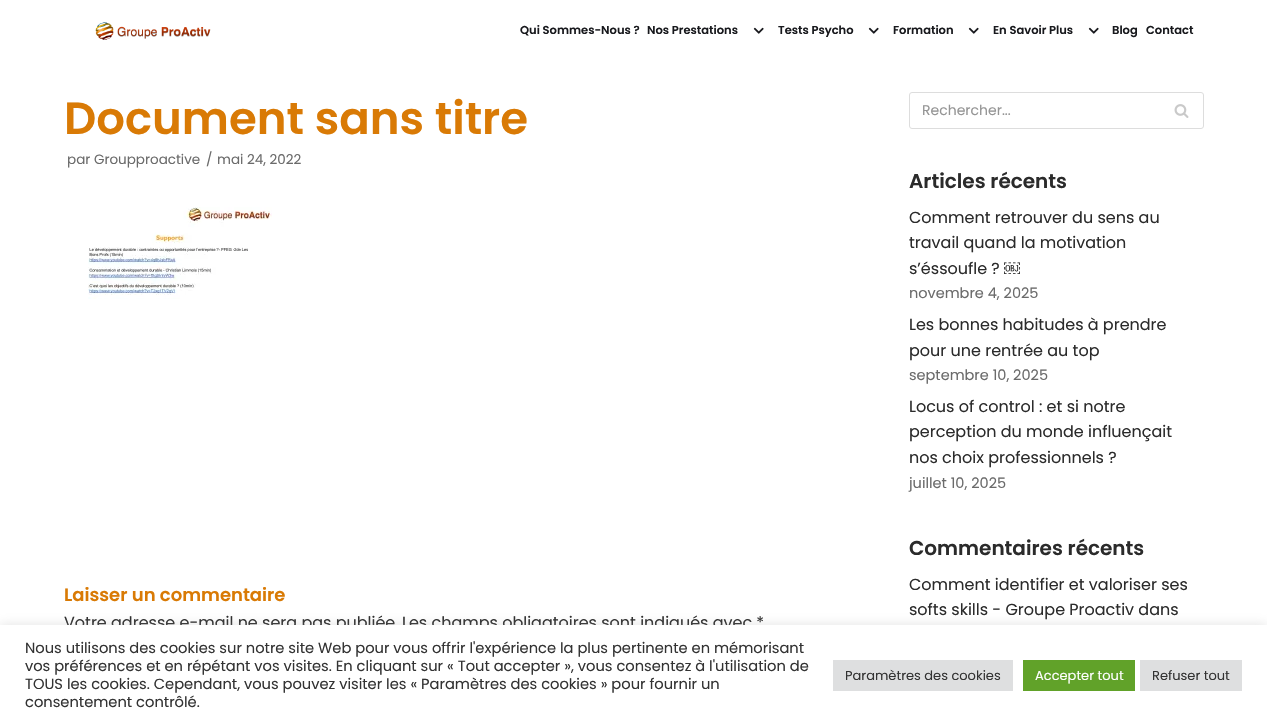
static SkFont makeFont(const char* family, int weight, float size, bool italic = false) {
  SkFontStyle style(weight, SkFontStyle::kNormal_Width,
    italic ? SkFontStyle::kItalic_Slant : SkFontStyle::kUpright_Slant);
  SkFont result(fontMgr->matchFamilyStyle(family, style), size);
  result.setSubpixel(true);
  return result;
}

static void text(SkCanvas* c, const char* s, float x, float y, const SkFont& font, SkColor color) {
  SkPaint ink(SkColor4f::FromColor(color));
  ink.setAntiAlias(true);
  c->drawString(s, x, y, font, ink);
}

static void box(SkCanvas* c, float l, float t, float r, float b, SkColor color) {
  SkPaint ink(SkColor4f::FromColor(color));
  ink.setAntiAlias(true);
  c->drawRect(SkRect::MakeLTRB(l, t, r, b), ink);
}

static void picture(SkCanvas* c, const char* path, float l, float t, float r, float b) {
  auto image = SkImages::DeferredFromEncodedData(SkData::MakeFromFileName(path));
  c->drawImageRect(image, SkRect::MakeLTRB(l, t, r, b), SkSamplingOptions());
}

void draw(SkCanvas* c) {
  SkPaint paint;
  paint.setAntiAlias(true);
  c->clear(0xffffffff);
  picture(c, "img_01.png", 95, 22, 211, 40);
  SkFont face1 = makeFont("Poppins", 600, 11.5f);
  text(c, "Qui Sommes-Nous ?", 520, 34, face1, 0xff18191d);
  text(c, "Nos Prestations", 647, 34, face1, 0xff18191d);
  picture(c, "img_02.png", 753, 27, 764, 34);
  text(c, "Tests Psycho", 778, 34, face1, 0xff18191d);
  picture(c, "img_02.png", 868, 27, 879, 34);
  text(c, "Formation", 893, 34, face1, 0xff18191d);
  picture(c, "img_02.png", 968, 27, 979, 34);
  text(c, "En Savoir Plus", 993, 34, face1, 0xff18191d);
  picture(c, "img_02.png", 1088, 27, 1099, 34);
  text(c, "Blog", 1112, 34, face1, 0xff18191d);
  text(c, "Contact", 1146, 34, face1, 0xff18191d);
  SkFont face2 = makeFont("Poppins", 600, 45);
  text(c, "Document sans titre", 64, 134, face2, 0xffd97a05);
  SkFont face3 = makeFont("Poppins", 400, 13.5f);
  text(c, "par Groupproactive", 67, 164, face3, 0xff6b6b6b);
  text(c, "/", 206, 164, face3, 0xff6b6b6b);
  text(c, "mai 24, 2022", 217, 164, face3, 0xff6b6b6b);
  picture(c, "img_03.png", 88, 207, 272, 299);
  SkFont face4 = makeFont("Poppins", 600, 18);
  text(c, "Laisser un commentaire", 64, 601, face4, 0xffd97a05);
  SkFont face5 = makeFont("Poppins", 400, 16);
  text(c, "Votre adresse e-mail ne sera pas publiée", 64, 628, face5, 0xff2b2b2b);
  text(c, "Les champs obligatoires sont indiqués avec *", 402, 628, face5, 0xff2b2b2b);
  paint.setStyle(SkPaint::kStroke_Style);
  paint.setStrokeWidth(1);
  paint.setColor(0xffdddddd);
  c->drawRoundRect(SkRect::MakeLTRB(909.5f, 92.5f, 1203.5f, 128.5f), 2.5f, 2.5f, paint);
  SkFont face6 = makeFont("Poppins", 400, 14);
  text(c, "Rechercher...", 922, 115, face6, 0xff959595);
  picture(c, "img_04.png", 1174, 104, 1189, 118);
  SkFont face7 = makeFont("Poppins", 600, 20);
  text(c, "Articles récents", 909, 188, face7, 0xff2b2b2b);
  text(c, "Comment retrouver du sens au", 909, 223, face5, 0xff2b2b2b);
  text(c, "travail quand la motivation", 909, 248, face5, 0xff2b2b2b);
  text(c, "s’éssoufle ?", 909, 274, face5, 0xff2b2b2b);
  SkFont face8 = makeFont("Liberation Sans", 400, 16);
  text(c, "￼", 1004, 274, face8, 0xff2b2b2b);
  SkFont face9 = makeFont("Poppins", 400, 14.5f);
  text(c, "novembre 4, 2025", 909, 298, face9, 0xff6b6b6b);
  text(c, "Les bonnes habitudes à prendre", 909, 330, face5, 0xff2b2b2b);
  text(c, "pour une rentrée au top", 909, 356, face5, 0xff2b2b2b);
  text(c, "septembre 10, 2025", 909, 380, face9, 0xff6b6b6b);
  text(c, "Locus of control : et si notre", 909, 412, face5, 0xff2b2b2b);
  text(c, "perception du monde influençait", 909, 437, face5, 0xff2b2b2b);
  text(c, "nos choix professionnels ?", 909, 463, face5, 0xff2b2b2b);
  text(c, "juillet 10, 2025", 909, 488, face9, 0xff6b6b6b);
  text(c, "Commentaires récents", 909, 555, face7, 0xff2b2b2b);
  text(c, "Comment identifier et valoriser ses", 909, 590, face5, 0xff2b2b2b);
  text(c, "softs skills - Groupe Proactiv dans", 909, 615, face5, 0xff2b2b2b);
  paint.setStyle(SkPaint::kFill_Style);
  paint.setColor(0x4dacabab);
  paint.setMaskFilter(SkMaskFilter::MakeBlur(kNormal_SkBlurStyle, 5));
  c->drawRect(SkRect::MakeLTRB(0, 624, 1267, 724), paint);
  paint.setMaskFilter(nullptr);
  box(c, 0, 625, 1267, 725, 0xffffffff);
  SkFont face10 = makeFont("Poppins", 400, 14.67f);
  text(c, "Nous utilisons des cookies sur notre site Web pour vous offrir l'expérience la plus pertinente en mémorisant", 25, 653, face10, 0xff333333);
  text(c, "vos préférences et en répétant vos visites. En cliquant sur « Tout accepter », vous consentez à l'utilisation de", 25, 671, face10, 0xff333333);
  text(c, "TOUS les cookies. Cependant, vous pouvez visiter les « Paramètres des cookies » pour fournir un", 25, 689, face10, 0xff333333);
  text(c, "consentement contrôlé.", 25, 707, face10, 0xff333333);
  box(c, 833, 660, 1013, 691, 0xffdedfe0);
  SkFont face11 = makeFont("Poppins", 400, 13);
  text(c, "Paramètres des cookies", 845, 680, face11, 0xff333333);
  box(c, 1023, 660, 1135, 691, 0xff61a229);
  text(c, "Accepter tout", 1035, 680, face11, 0xffffffff);
  box(c, 1140, 660, 1242, 691, 0xffdedfe0);
  text(c, "Refuser tout", 1152, 680, face11, 0xff333333);
}
